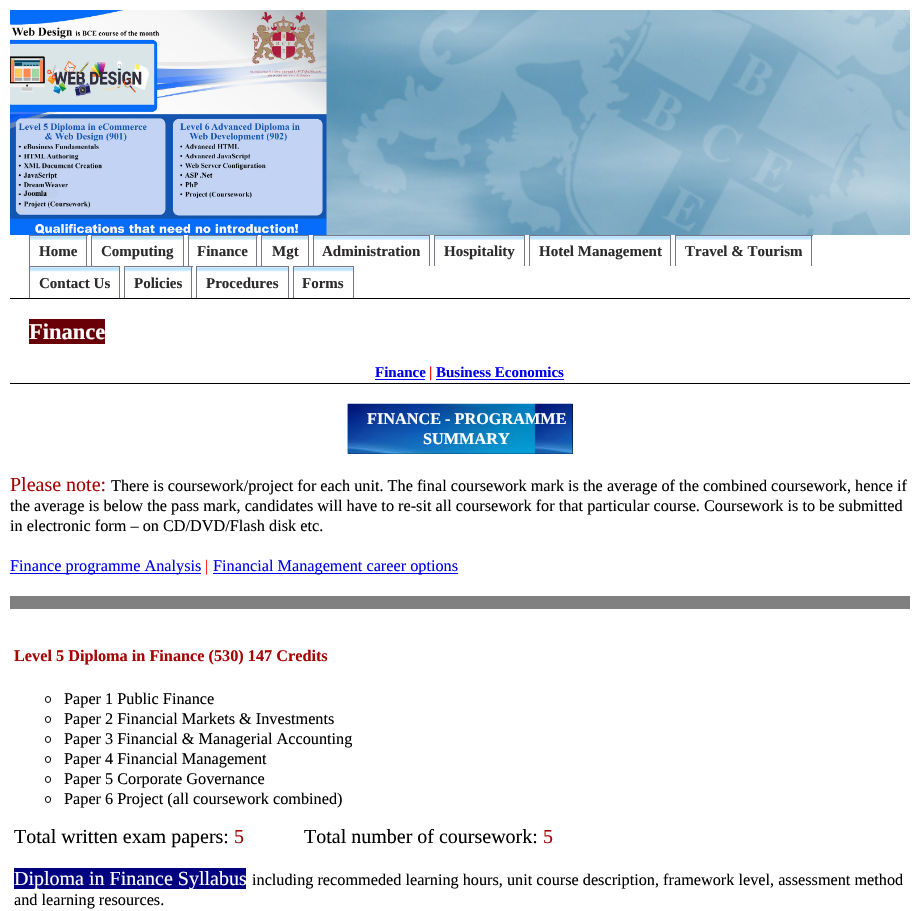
static SkFont makeFont(const char* family, int weight, float size, bool italic = false) {
  SkFontStyle style(weight, SkFontStyle::kNormal_Width,
    italic ? SkFontStyle::kItalic_Slant : SkFontStyle::kUpright_Slant);
  SkFont result(fontMgr->matchFamilyStyle(family, style), size);
  result.setSubpixel(true);
  return result;
}

static void text(SkCanvas* c, const char* s, float x, float y, const SkFont& font, SkColor color) {
  SkPaint ink(SkColor4f::FromColor(color));
  ink.setAntiAlias(true);
  c->drawString(s, x, y, font, ink);
}

static void box(SkCanvas* c, float l, float t, float r, float b, SkColor color) {
  SkPaint ink(SkColor4f::FromColor(color));
  ink.setAntiAlias(true);
  c->drawRect(SkRect::MakeLTRB(l, t, r, b), ink);
}

static void picture(SkCanvas* c, const char* path, float l, float t, float r, float b) {
  auto image = SkImages::DeferredFromEncodedData(SkData::MakeFromFileName(path));
  c->drawImageRect(image, SkRect::MakeLTRB(l, t, r, b), SkSamplingOptions());
}

void draw(SkCanvas* c) {
  SkPaint paint;
  paint.setAntiAlias(true);
  c->clear(0xffffffff);
  picture(c, "img_01.png", 10, 10, 910, 235);
  box(c, 10, 298, 910, 299, 0xff000000);
  picture(c, "img_02.png", 28, 236, 88, 240);
  box(c, 29, 235, 88, 236, 0xff777788);
  box(c, 86, 235, 87, 266, 0xff777788);
  box(c, 29, 235, 30, 266, 0xff777788);
  SkFont face1 = makeFont("Liberation Serif", 700, 15);
  text(c, "Home", 39, 256, face1, 0xff2d2b2b);
  picture(c, "img_03.png", 92, 236, 183, 240);
  box(c, 91, 235, 184, 236, 0xff777788);
  box(c, 183, 235, 184, 266, 0xff777788);
  box(c, 91, 235, 92, 266, 0xff777788);
  text(c, "Computing", 101, 256, face1, 0xff2d2b2b);
  picture(c, "img_04.png", 187, 236, 258, 240);
  box(c, 188, 235, 258, 236, 0xff777788);
  box(c, 256, 235, 257, 266, 0xff777788);
  box(c, 188, 235, 189, 266, 0xff777788);
  text(c, "Finance", 197, 256, face1, 0xff2d2b2b);
  picture(c, "img_05.png", 262, 236, 308, 240);
  box(c, 261, 235, 309, 236, 0xff777788);
  box(c, 308, 235, 309, 266, 0xff777788);
  box(c, 261, 235, 262, 266, 0xff777788);
  text(c, "Mgt", 272, 256, face1, 0xff2d2b2b);
  picture(c, "img_06.png", 312, 236, 429, 240);
  box(c, 313, 235, 430, 236, 0xff777788);
  box(c, 429, 235, 430, 266, 0xff777788);
  box(c, 313, 235, 314, 266, 0xff777788);
  text(c, "Administration", 322, 256, face1, 0xff2d2b2b);
  picture(c, "img_07.png", 433, 236, 524, 240);
  box(c, 434, 235, 525, 236, 0xff777788);
  box(c, 524, 235, 525, 266, 0xff777788);
  box(c, 434, 235, 435, 266, 0xff777788);
  text(c, "Hospitality", 444, 256, face1, 0xff2d2b2b);
  picture(c, "img_08.png", 528, 236, 672, 240);
  box(c, 529, 235, 671, 236, 0xff777788);
  box(c, 670, 235, 671, 266, 0xff777788);
  box(c, 529, 235, 530, 266, 0xff777788);
  text(c, "Hotel Management", 539, 256, face1, 0xff2d2b2b);
  picture(c, "img_09.png", 676, 236, 813, 240);
  box(c, 675, 235, 813, 236, 0xff777788);
  box(c, 811, 235, 812, 266, 0xff777788);
  box(c, 675, 235, 676, 266, 0xff777788);
  text(c, "Travel & Tourism", 685, 256, face1, 0xff2d2b2b);
  picture(c, "img_10.png", 28, 267, 119, 272);
  box(c, 29, 266, 120, 267, 0xff777788);
  box(c, 119, 266, 120, 298, 0xff777788);
  box(c, 29, 266, 30, 298, 0xff777788);
  text(c, "Contact Us", 39, 288, face1, 0xff2d2b2b);
  picture(c, "img_11.png", 123, 267, 193, 272);
  box(c, 124, 266, 193, 267, 0xff777788);
  box(c, 191, 266, 192, 298, 0xff777788);
  box(c, 124, 266, 125, 298, 0xff777788);
  text(c, "Policies", 134, 288, face1, 0xff2d2b2b);
  picture(c, "img_12.png", 197, 267, 288, 272);
  box(c, 196, 266, 289, 267, 0xff777788);
  box(c, 288, 266, 289, 298, 0xff777788);
  box(c, 196, 266, 197, 298, 0xff777788);
  text(c, "Procedures", 206, 288, face1, 0xff2d2b2b);
  picture(c, "img_13.png", 292, 267, 353, 272);
  box(c, 293, 266, 354, 267, 0xff777788);
  box(c, 353, 266, 354, 298, 0xff777788);
  box(c, 293, 266, 294, 298, 0xff777788);
  text(c, "Forms", 302, 288, face1, 0xff2d2b2b);
  box(c, 10, 383, 910, 384, 0xff000000);
  box(c, 29, 319, 105, 344, 0xff6a0007);
  SkFont face2 = makeFont("Liberation Serif", 700, 22.5f);
  text(c, "Finance", 29, 339, face2, 0xffffffff);
  text(c, "Finance", 375, 377, face1, 0xff0000ee);
  box(c, 375, 379, 425, 380, 0xff0000ee);
  text(c, "|", 429, 377, face1, 0xffff0000);
  text(c, "Business Economics", 436, 377, face1, 0xff0000ee);
  box(c, 436, 379, 564, 380, 0xff0000ee);
  box(c, 348, 404, 573, 454, 0xff000000);
  picture(c, "img_14.png", 347, 403, 573, 454);
  SkFont face3 = makeFont("Liberation Serif", 700, 16.25f);
  text(c, "FINANCE - PROGRAMME", 367, 424, face3, 0xffffffff);
  text(c, "SUMMARY", 423, 444, face3, 0xffffffff);
  SkFont face4 = makeFont("Liberation Serif", 400, 20);
  text(c, "Please note:", 10, 491, face4, 0xffa70303);
  SkFont face5 = makeFont("Liberation Serif", 400, 16.25f);
  text(c, "There is coursework/project for each unit. The final coursework mark is the average of the combined coursework, hence if", 111, 491, face5, 0xff000000);
  text(c, "the average is below the pass mark, candidates will have to re-sit all coursework for that particular course. Coursework is to be submitted", 10, 511, face5, 0xff000000);
  text(c, "in electronic form – on CD/DVD/Flash disk etc.", 10, 531, face5, 0xff000000);
  box(c, 10, 573, 201, 574, 0xff0000ee);
  text(c, "Finance programme Analysis", 10, 571, face5, 0xff0000ee);
  text(c, "|", 205, 571, face5, 0xffff0000);
  box(c, 213, 573, 458, 574, 0xff0000ee);
  text(c, "Financial Management career options", 213, 571, face5, 0xff0000ee);
  box(c, 10, 596, 910, 609, 0xff808080);
  text(c, "Level 5 Diploma in Finance (530) 147 Credits", 14, 661, face3, 0xffa70303);
  paint.setStyle(SkPaint::kStroke_Style);
  paint.setStrokeWidth(1);
  paint.setColor(0xff000000);
  c->drawRoundRect(SkRect::MakeLTRB(45.5f, 696.5f, 50.5f, 702.5f), 2.5f, 2.5f, paint);
  text(c, "Paper 1 Public Finance", 64, 704, face5, 0xff000000);
  c->drawRoundRect(SkRect::MakeLTRB(45.5f, 716.5f, 50.5f, 722.5f), 2.5f, 2.5f, paint);
  text(c, "Paper 2 Financial Markets & Investments", 64, 724, face5, 0xff000000);
  c->drawRoundRect(SkRect::MakeLTRB(45.5f, 736.5f, 50.5f, 742.5f), 2.5f, 2.5f, paint);
  text(c, "Paper 3 Financial & Managerial Accounting", 64, 744, face5, 0xff000000);
  c->drawRoundRect(SkRect::MakeLTRB(45.5f, 756.5f, 50.5f, 762.5f), 2.5f, 2.5f, paint);
  text(c, "Paper 4 Financial Management", 64, 764, face5, 0xff000000);
  c->drawRoundRect(SkRect::MakeLTRB(45.5f, 776.5f, 50.5f, 782.5f), 2.5f, 2.5f, paint);
  text(c, "Paper 5 Corporate Governance", 64, 784, face5, 0xff000000);
  c->drawRoundRect(SkRect::MakeLTRB(45.5f, 796.5f, 50.5f, 802.5f), 2.5f, 2.5f, paint);
  text(c, "Paper 6 Project (all coursework combined)", 64, 804, face5, 0xff000000);
  text(c, "Total written exam papers:", 14, 843, face4, 0xff000000);
  text(c, "5", 234, 843, face4, 0xffa70303);
  text(c, "Total number of coursework:", 304, 843, face4, 0xff000000);
  text(c, "5", 543, 843, face4, 0xffa70303);
  box(c, 14, 868, 246, 889, 0xff000080);
  text(c, "Diploma in Finance Syllabus", 14, 885, face4, 0xffffffff);
  text(c, "including recommeded learning hours, unit course description, framework level, assessment method", 252, 885, face5, 0xff000000);
  text(c, "and learning resources.", 14, 905, face5, 0xff000000);
}
